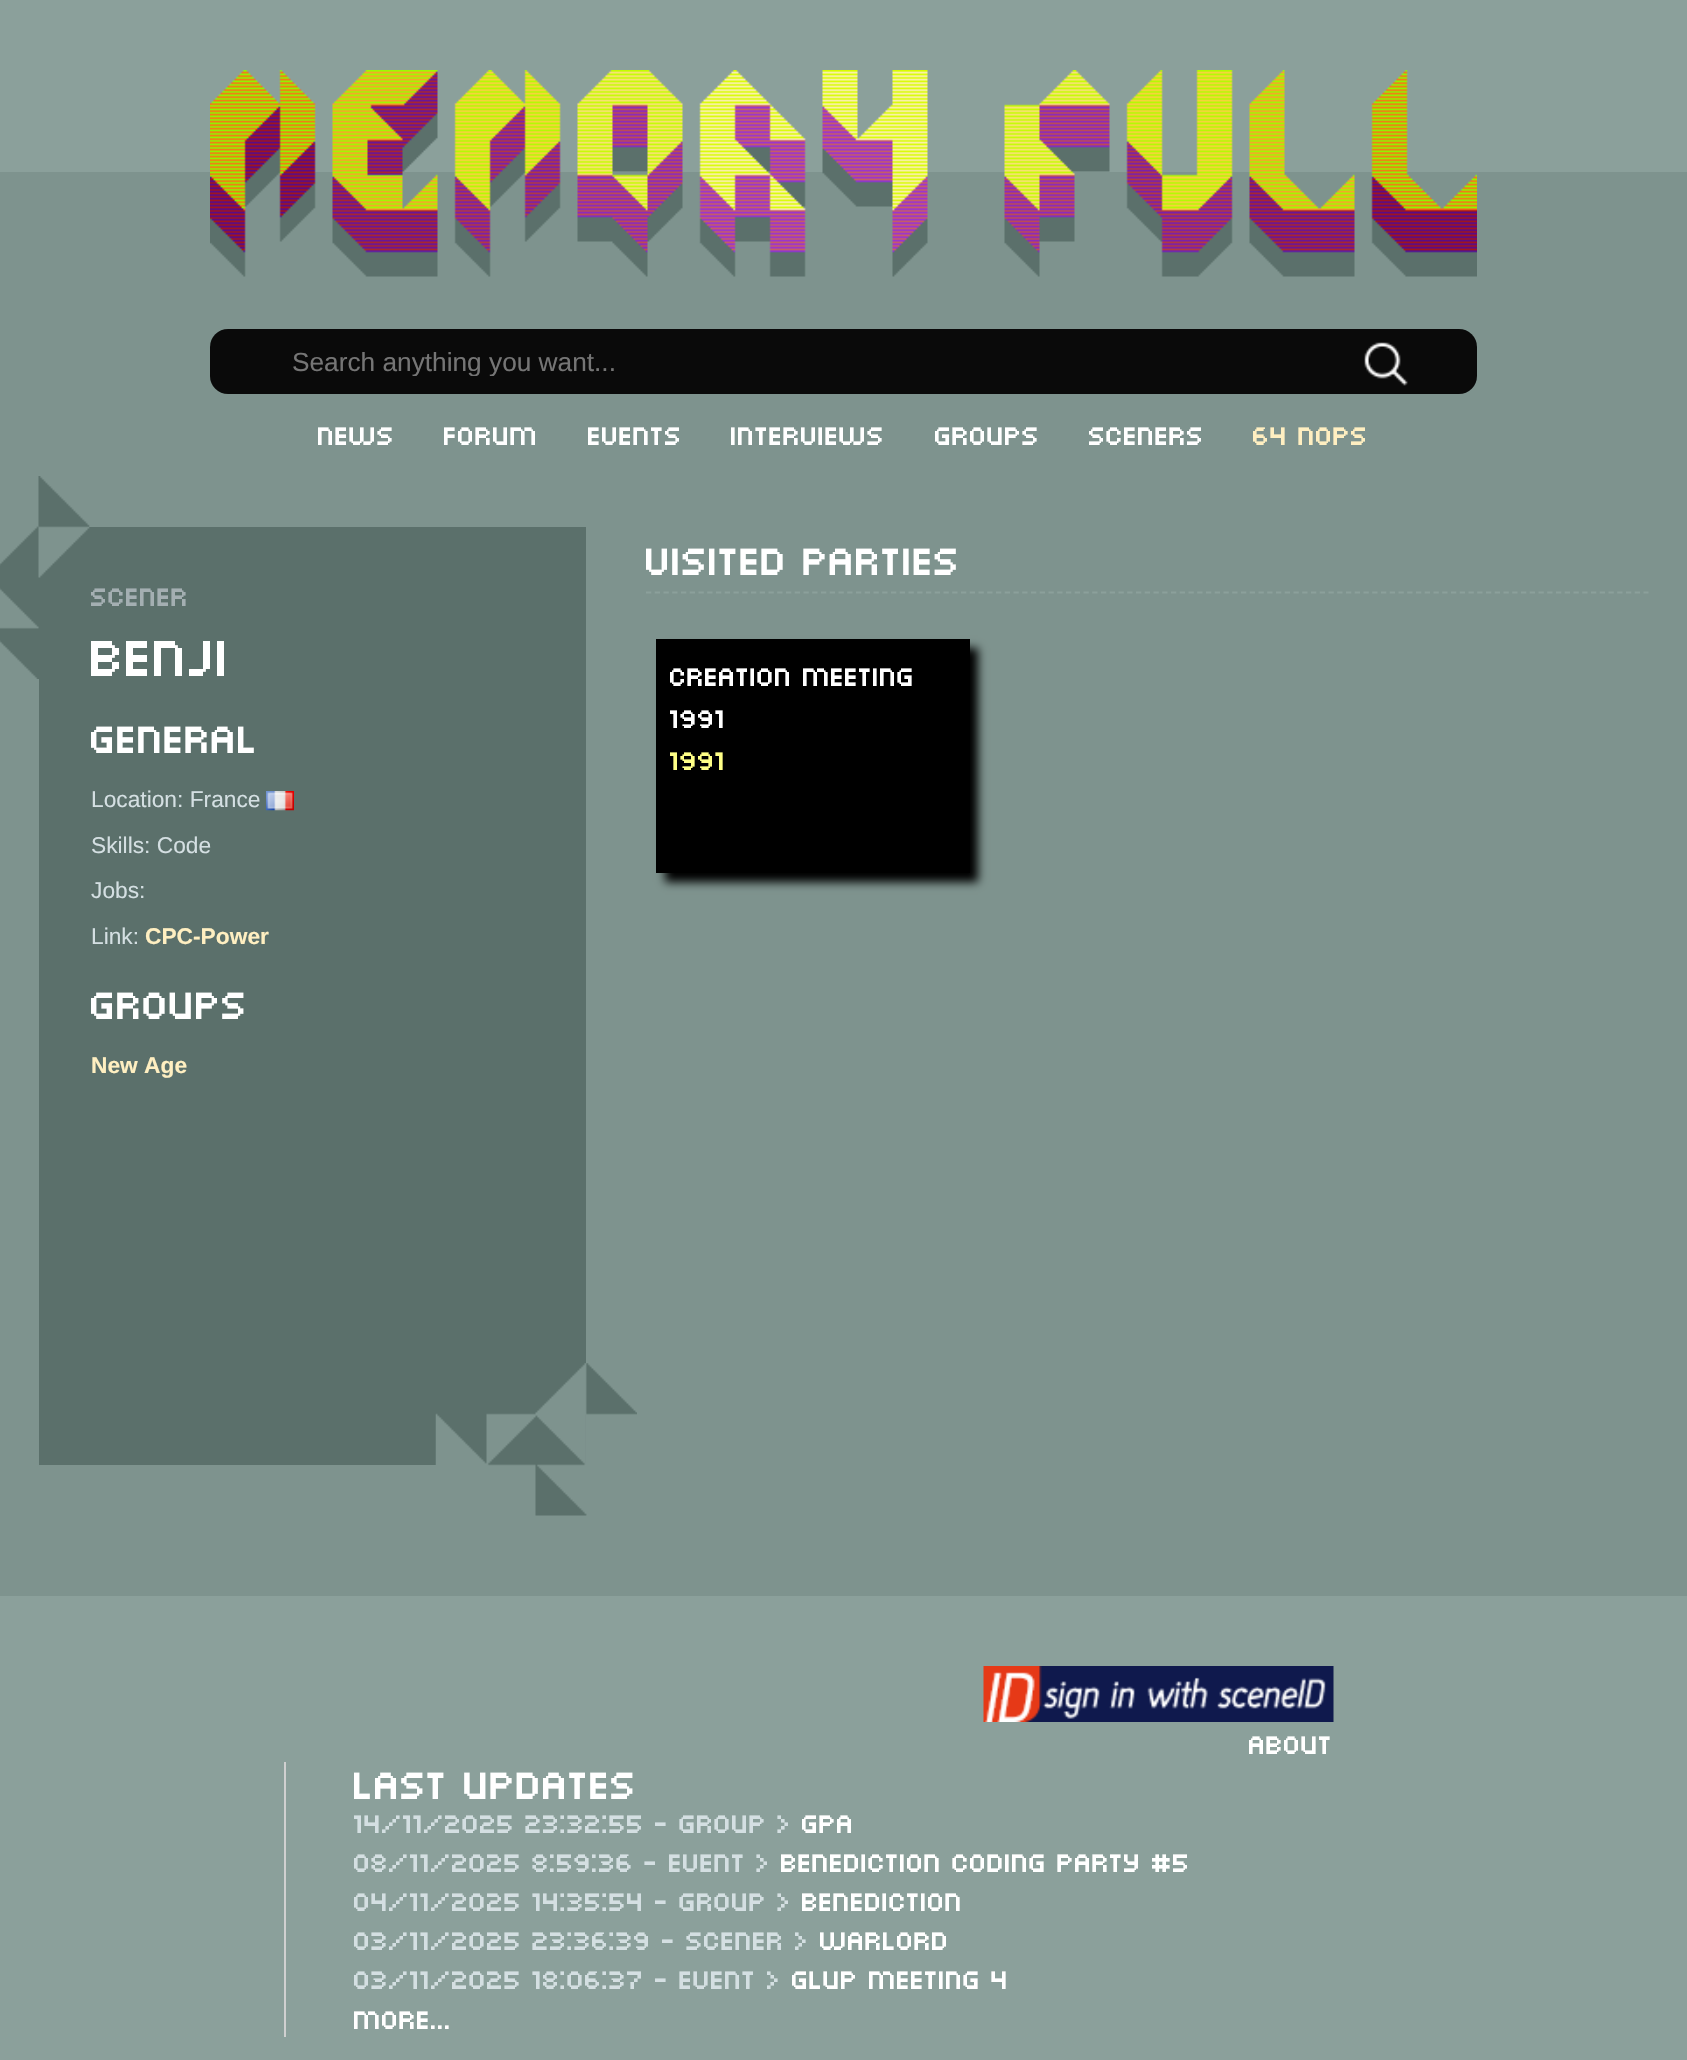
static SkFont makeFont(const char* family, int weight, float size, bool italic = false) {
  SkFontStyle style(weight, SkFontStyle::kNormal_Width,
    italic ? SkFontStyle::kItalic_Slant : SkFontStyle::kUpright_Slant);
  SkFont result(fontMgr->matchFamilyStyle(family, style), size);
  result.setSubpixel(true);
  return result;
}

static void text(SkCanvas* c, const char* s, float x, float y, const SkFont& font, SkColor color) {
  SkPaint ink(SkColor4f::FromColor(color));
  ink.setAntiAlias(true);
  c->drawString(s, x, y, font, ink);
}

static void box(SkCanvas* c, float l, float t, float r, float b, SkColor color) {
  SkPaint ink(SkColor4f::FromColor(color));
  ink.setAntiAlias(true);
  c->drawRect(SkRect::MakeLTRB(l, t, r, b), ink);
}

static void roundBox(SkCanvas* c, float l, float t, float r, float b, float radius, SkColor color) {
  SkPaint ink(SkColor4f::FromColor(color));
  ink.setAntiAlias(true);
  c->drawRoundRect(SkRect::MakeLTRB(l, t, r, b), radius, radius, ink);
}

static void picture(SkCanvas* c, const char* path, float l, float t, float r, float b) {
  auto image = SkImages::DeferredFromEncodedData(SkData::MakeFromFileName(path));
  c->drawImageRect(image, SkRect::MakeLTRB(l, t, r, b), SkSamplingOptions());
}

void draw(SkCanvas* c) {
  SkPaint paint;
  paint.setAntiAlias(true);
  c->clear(0xff7e938e);
  box(c, 0, 0, 1687, 172, 0xff8ba09b);
  picture(c, "img_01.png", 210, 70, 1477, 277);
  roundBox(c, 210, 329, 1477, 394, 18, 0xff0a0a0a);
  c->save();
  c->clipRect(SkRect::MakeLTRB(292, 347, 1342, 376));
  SkFont face1 = makeFont("Liberation Sans", 400, 26.25f);
  text(c, "Search anything you want...", 292, 371, face1, 0xff757575);
  c->restore();
  picture(c, "img_02.png", 1364, 342, 1408, 386);
  SkFont face2 = makeFont("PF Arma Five", 400, 28);
  text(c, "News", 318, 445, face2, 0xffffffff);
  text(c, "Forum", 444, 445, face2, 0xffffffff);
  text(c, "Events", 588, 445, face2, 0xffffffff);
  text(c, "Interviews", 731, 445, face2, 0xffffffff);
  text(c, "Groups", 935, 445, face2, 0xffffffff);
  text(c, "Sceners", 1089, 445, face2, 0xffffffff);
  text(c, "64 NOPs", 1253, 445, face2, 0xffffefc1);
  box(c, 39, 527, 586, 1465, 0xff5b706b);
  picture(c, "img_03.png", 0, 476, 90, 679);
  text(c, "Scener", 91, 606, face2, 0xffa4afb2);
  SkFont face3 = makeFont("PF Arma Five", 400, 56);
  text(c, "Benji", 91, 676, face3, 0xffffffff);
  SkFont face4 = makeFont("PF Arma Five", 400, 42);
  text(c, "General", 91, 753, face4, 0xffffffff);
  SkFont face5 = makeFont("Liberation Sans", 400, 22.75f);
  text(c, "Location: France", 91, 807, face5, 0xffd4dfe2);
  picture(c, "img_04.png", 266, 791, 294, 811);
  text(c, "Skills: Code", 91, 853, face5, 0xffd4dfe2);
  text(c, "Jobs:", 91, 898, face5, 0xffd4dfe2);
  text(c, "Link:", 91, 944, face5, 0xffd4dfe2);
  SkFont face6 = makeFont("Liberation Sans", 700, 22.75f);
  text(c, "CPC-Power", 145, 944, face6, 0xffffefc1);
  text(c, "Groups", 91, 1019, face4, 0xffffffff);
  text(c, "New Age", 91, 1073, face6, 0xffffefc1);
  picture(c, "img_05.png", 435, 1363, 637, 1516);
  paint.setStyle(SkPaint::kStroke_Style);
  paint.setStrokeWidth(1.8f);
  paint.setColor(0xff8ba09b);
  paint.setPathEffect(SkDashPathEffect::Make({{5.25f, 3.5f}}, 0));
  c->drawPath(SkPathBuilder().moveTo(646, 592.5f).lineTo(1648.5f, 592.5f).detach(), paint);
  paint.setPathEffect(nullptr);
  text(c, "Visited parties", 646, 575, face4, 0xffffffff);
  paint.setStyle(SkPaint::kFill_Style);
  paint.setColor(0xff000000);
  paint.setMaskFilter(SkMaskFilter::MakeBlur(kNormal_SkBlurStyle, 4.5f));
  c->drawRect(SkRect::MakeLTRB(665, 648, 978, 882), paint);
  paint.setMaskFilter(nullptr);
  box(c, 656, 639, 970, 873, 0xff000000);
  text(c, "Creation Meeting", 670, 686, face2, 0xffffffff);
  text(c, "1991", 670, 728, face2, 0xffffffff);
  text(c, "1991", 670, 770, face2, 0xffffff86);
  box(c, 0, 1596, 1687, 2060, 0xff8ba09b);
  picture(c, "img_06.png", 983, 1666, 1334, 1722);
  text(c, "About", 1249, 1754, face2, 0xffffffff);
  box(c, 284, 1762, 286, 2037, 0xffd0d0d0);
  text(c, "Last Updates", 354, 1799, face4, 0xffffffff);
  text(c, "14/11/2025 23:32:55 - Group >", 354, 1833, face2, 0xffd4dfe2);
  text(c, "GPA", 802, 1833, face2, 0xffffffff);
  text(c, "08/11/2025 8:59:36 - Event >", 354, 1872, face2, 0xffd4dfe2);
  text(c, "Benediction Coding Party #5", 781, 1872, face2, 0xffffffff);
  text(c, "04/11/2025 14:35:54 - Group >", 354, 1911, face2, 0xffd4dfe2);
  text(c, "Benediction", 802, 1911, face2, 0xffffffff);
  text(c, "03/11/2025 23:36:39 - Scener >", 354, 1950, face2, 0xffd4dfe2);
  text(c, "Warlord", 820, 1950, face2, 0xffffffff);
  text(c, "03/11/2025 18:06:37 - Event >", 354, 1989, face2, 0xffd4dfe2);
  text(c, "Glup Meeting 4", 792, 1989, face2, 0xffffffff);
  text(c, "More...", 354, 2029, face2, 0xffffffff);
}
